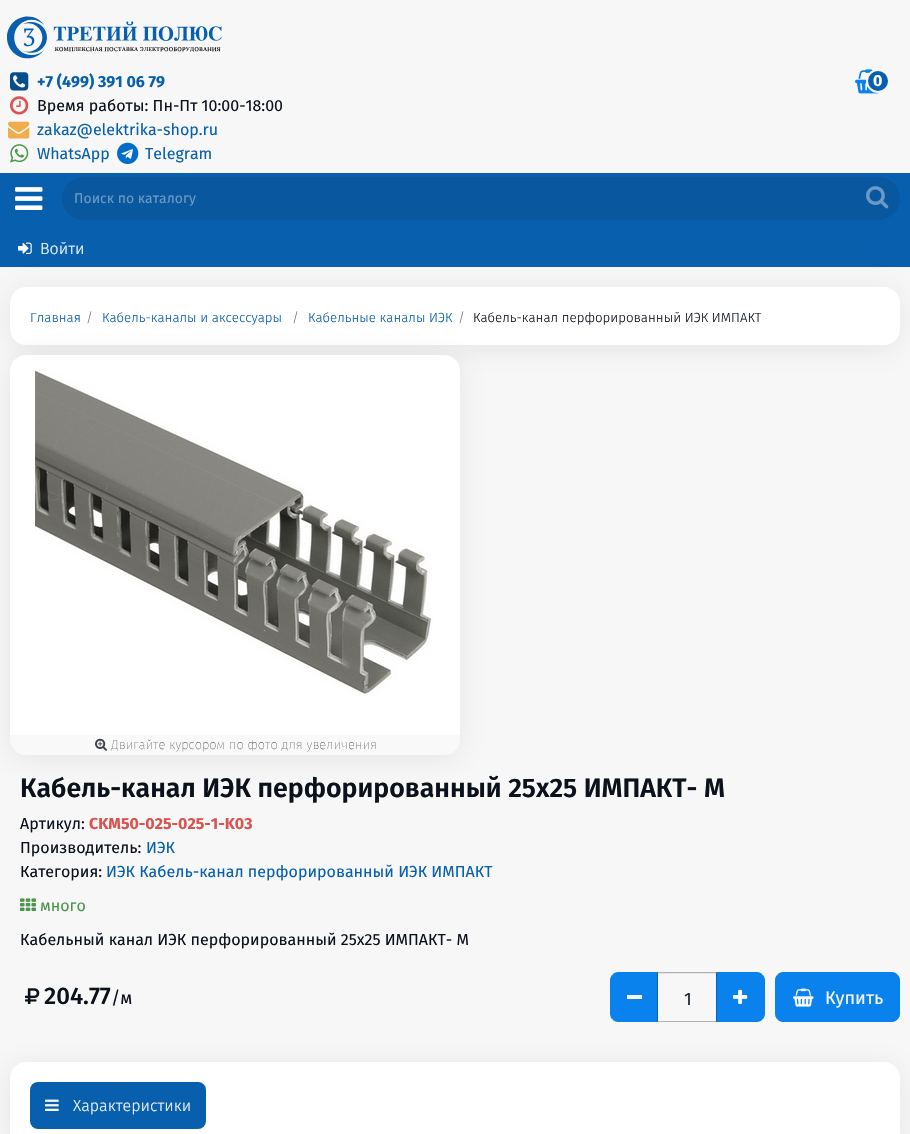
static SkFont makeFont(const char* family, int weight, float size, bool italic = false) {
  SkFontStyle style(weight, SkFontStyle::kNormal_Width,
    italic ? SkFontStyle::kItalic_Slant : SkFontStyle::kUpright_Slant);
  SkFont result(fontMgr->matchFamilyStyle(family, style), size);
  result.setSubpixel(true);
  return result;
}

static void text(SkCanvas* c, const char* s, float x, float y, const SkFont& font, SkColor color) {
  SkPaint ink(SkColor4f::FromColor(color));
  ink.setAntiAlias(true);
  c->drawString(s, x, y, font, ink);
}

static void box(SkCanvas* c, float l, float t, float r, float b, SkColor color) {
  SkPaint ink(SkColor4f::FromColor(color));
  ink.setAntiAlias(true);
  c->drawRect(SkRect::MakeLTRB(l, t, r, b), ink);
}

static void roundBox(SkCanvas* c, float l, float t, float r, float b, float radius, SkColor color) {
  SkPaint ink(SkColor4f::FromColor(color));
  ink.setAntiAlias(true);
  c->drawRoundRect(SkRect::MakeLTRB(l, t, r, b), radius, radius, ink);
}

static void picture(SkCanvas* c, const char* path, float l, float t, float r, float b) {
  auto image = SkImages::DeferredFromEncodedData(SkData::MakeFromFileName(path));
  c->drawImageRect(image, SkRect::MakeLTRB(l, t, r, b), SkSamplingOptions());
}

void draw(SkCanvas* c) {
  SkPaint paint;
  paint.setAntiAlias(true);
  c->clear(0xfff7f7f7);
  picture(c, "img_01.png", 6, 16, 222, 59);
  picture(c, "img_02.png", 10, 72, 29, 91);
  SkFont face1 = makeFont("Fira Sans", 700, 16);
  text(c, "+7 (499) 391 06 79", 37, 87, face1, 0xff075fad);
  picture(c, "img_03.png", 10, 96, 29, 115);
  SkFont face2 = makeFont("Fira Sans", 400, 16);
  text(c, "Время работы: Пн-Пт 10:00-18:00", 37, 111, face2, 0xff0c121c);
  picture(c, "img_04.png", 8, 121, 30, 139);
  text(c, "zakaz@elektrika-shop.ru", 37, 135, face2, 0xff075fad);
  picture(c, "img_05.png", 10, 144, 29, 163);
  text(c, "WhatsApp", 37, 159, face2, 0xff075fad);
  picture(c, "img_06.png", 117, 142, 139, 164);
  text(c, "Telegram", 145, 159, face2, 0xff075fad);
  picture(c, "img_07.png", 855, 69, 879, 94);
  paint.setColor(0xff075fad);
  c->drawCircle(878, 81, 11, paint);
  paint.setStyle(SkPaint::kStroke_Style);
  paint.setStrokeWidth(2);
  paint.setColor(0xfff7f7f7);
  c->drawCircle(878, 81, 11, paint);
  text(c, "0", 873, 86, face1, 0xffffffff);
  box(c, 0, 173, 910, 267, 0xff075fad);
  picture(c, "img_08.png", 15, 187, 43, 210);
  roundBox(c, 62, 177, 900, 220, 21.5f, 0xff08579f);
  SkFont face3 = makeFont("Fira Sans", 400, 14);
  text(c, "Поиск по каталогу", 74, 203, face3, 0xff6b9ac5);
  picture(c, "img_09.png", 866, 186, 889, 209);
  picture(c, "img_10.png", 18, 242, 32, 254);
  SkFont face4 = makeFont("Fira Sans", 300, 16);
  text(c, "Войти", 40, 254, face4, 0xffffffff);
  paint.setStyle(SkPaint::kFill_Style);
  paint.setColor(0x140c121c);
  paint.setMaskFilter(SkMaskFilter::MakeBlur(kNormal_SkBlurStyle, 16));
  c->drawRoundRect(SkRect::MakeLTRB(10, 291, 900, 349), 16, 16, paint);
  paint.setMaskFilter(nullptr);
  roundBox(c, 10, 287, 900, 345, 16, 0xffffffff);
  SkFont face5 = makeFont("Fira Sans", 300, 13.3f);
  text(c, "Главная", 30, 322, face5, 0xff075fad);
  text(c, "/", 86, 322, face5, 0xff777777);
  text(c, "Кабель-каналы и аксессуары", 102, 322, face5, 0xff075fad);
  text(c, "/", 292, 322, face5, 0xff777777);
  text(c, "Кабельные каналы ИЭК", 308, 322, face5, 0xff075fad);
  text(c, "/", 458, 322, face5, 0xff777777);
  text(c, "Кабель-канал перфорированный ИЭК ИМПАКТ", 473, 322, face5, 0xff0c121c);
  paint.setMaskFilter(SkMaskFilter::MakeBlur(kNormal_SkBlurStyle, 16));
  c->drawRoundRect(SkRect::MakeLTRB(10, 359, 460, 759), 16, 16, paint);
  paint.setMaskFilter(nullptr);
  roundBox(c, 10, 355, 460, 755, 16, 0xffffffff);
  picture(c, "img_11.png", 35, 369, 433, 696);
  paint.setColor(0xccf7f7f7);
  c->drawPath(SkPathBuilder().moveTo(10, 735).lineTo(460, 735).lineTo(460, 739).cubicTo(460, 748, 453, 755, 444, 755).lineTo(26, 755).cubicTo(17, 755, 10, 748, 10, 739).close().detach(), paint);
  picture(c, "img_12.png", 95, 738, 107, 751);
  SkFont face6 = makeFont("Fira Sans", 100, 13);
  text(c, "Двигайте курсором по фото для увеличения", 111, 749, face6, 0xff3d4149);
  SkFont face7 = makeFont("Fira Sans", 600, 26.7f);
  text(c, "Кабель-канал ИЭК перфорированный 25х25 ИМПАКТ- М", 20, 797, face7, 0xff0c121c);
  text(c, "Артикул:", 20, 829, face2, 0xff0c121c);
  text(c, "CKM50-025-025-1-K03", 89, 829, face1, 0xffd9534f);
  text(c, "Производитель:", 20, 853, face2, 0xff0c121c);
  text(c, "ИЭК", 146, 853, face2, 0xff075fad);
  text(c, "Категория:", 20, 877, face2, 0xff0c121c);
  text(c, "ИЭК Кабель-канал перфорированный ИЭК ИМПАКТ", 106, 877, face2, 0xff075fad);
  picture(c, "img_13.png", 20, 898, 36, 911);
  text(c, "много", 40, 911, face2, 0xff4b964b);
  text(c, "Кабельный канал ИЭК перфорированный 25х25 ИМПАКТ- М", 20, 945, face2, 0xff0c121c);
  picture(c, "img_14.png", 25, 988, 40, 1004);
  SkFont face8 = makeFont("Fira Sans", 500, 24);
  text(c, "204.77", 44, 1004, face8, 0xff0c121c);
  SkFont face9 = makeFont("Fira Sans", 400, 18);
  text(c, "/м", 111, 1004, face9, 0xff0c121c);
  paint.setColor(0xff0a82ed);
  c->drawRoundRect(SkRect::MakeLTRB(775.5f, 972.5f, 899.5f, 1021.5f), 7.5f, 7.5f, paint);
  paint.setStyle(SkPaint::kStroke_Style);
  paint.setStrokeWidth(1);
  c->drawRoundRect(SkRect::MakeLTRB(775.5f, 972.5f, 899.5f, 1021.5f), 7.5f, 7.5f, paint);
  paint.setStyle(SkPaint::kFill_Style);
  paint.setColor(0x140c121c);
  paint.setMaskFilter(SkMaskFilter::MakeBlur(kNormal_SkBlurStyle, 16));
  c->drawRoundRect(SkRect::MakeLTRB(10, 1066, 900, 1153), 16, 16, paint);
  paint.setMaskFilter(nullptr);
  paint.setColor(0xff0a82ed);
  c->drawPath(SkPathBuilder().moveTo(618, 972.5f).lineTo(657.5f, 972.5f).lineTo(657.5f, 1021.5f).lineTo(618, 1021.5f).cubicTo(614, 1021.5f, 610.5f, 1018, 610.5f, 1014).lineTo(610.5f, 980).cubicTo(610.5f, 976, 614, 972.5f, 618, 972.5f).close().detach(), paint);
  paint.setStyle(SkPaint::kStroke_Style);
  c->drawPath(SkPathBuilder().moveTo(618, 972.5f).lineTo(657.5f, 972.5f).lineTo(657.5f, 1021.5f).lineTo(618, 1021.5f).cubicTo(614, 1021.5f, 610.5f, 1018, 610.5f, 1014).lineTo(610.5f, 980).cubicTo(610.5f, 976, 614, 972.5f, 618, 972.5f).close().detach(), paint);
  box(c, 627, 995, 642, 999, 0xfff7f7f7);
  box(c, 658, 973, 716, 974, 0xffe5e6e7);
  paint.setStyle(SkPaint::kFill_Style);
  c->drawPath(SkPathBuilder().moveTo(716.5f, 972.5f).lineTo(757, 972.5f).cubicTo(761, 972.5f, 764.5f, 976, 764.5f, 980).lineTo(764.5f, 1014).cubicTo(764.5f, 1018, 761, 1021.5f, 757, 1021.5f).lineTo(716.5f, 1021.5f).close().detach(), paint);
  paint.setStyle(SkPaint::kStroke_Style);
  c->drawPath(SkPathBuilder().moveTo(716.5f, 972.5f).lineTo(757, 972.5f).cubicTo(761, 972.5f, 764.5f, 976, 764.5f, 980).lineTo(764.5f, 1014).cubicTo(764.5f, 1018, 761, 1021.5f, 757, 1021.5f).lineTo(716.5f, 1021.5f).close().detach(), paint);
  paint.setColor(0x4d0c121c);
  c->drawRect(SkRect::MakeLTRB(657.5f, 972.5f, 716.5f, 1021.5f), paint);
  text(c, "1", 684, 1005, face9, 0xff232932);
  picture(c, "img_15.png", 733, 989, 748, 1004);
  picture(c, "img_16.png", 793, 988, 814, 1007);
  text(c, "Купить", 825, 1004, face9, 0xfff7f7f7);
  roundBox(c, 10, 1062, 900, 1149, 16, 0xffffffff);
  roundBox(c, 30, 1082, 206, 1129, 8, 0xff075fad);
  picture(c, "img_17.png", 45, 1099, 59, 1111);
  text(c, "Характеристики", 73, 1111, face4, 0xfff7f7f7);
}
